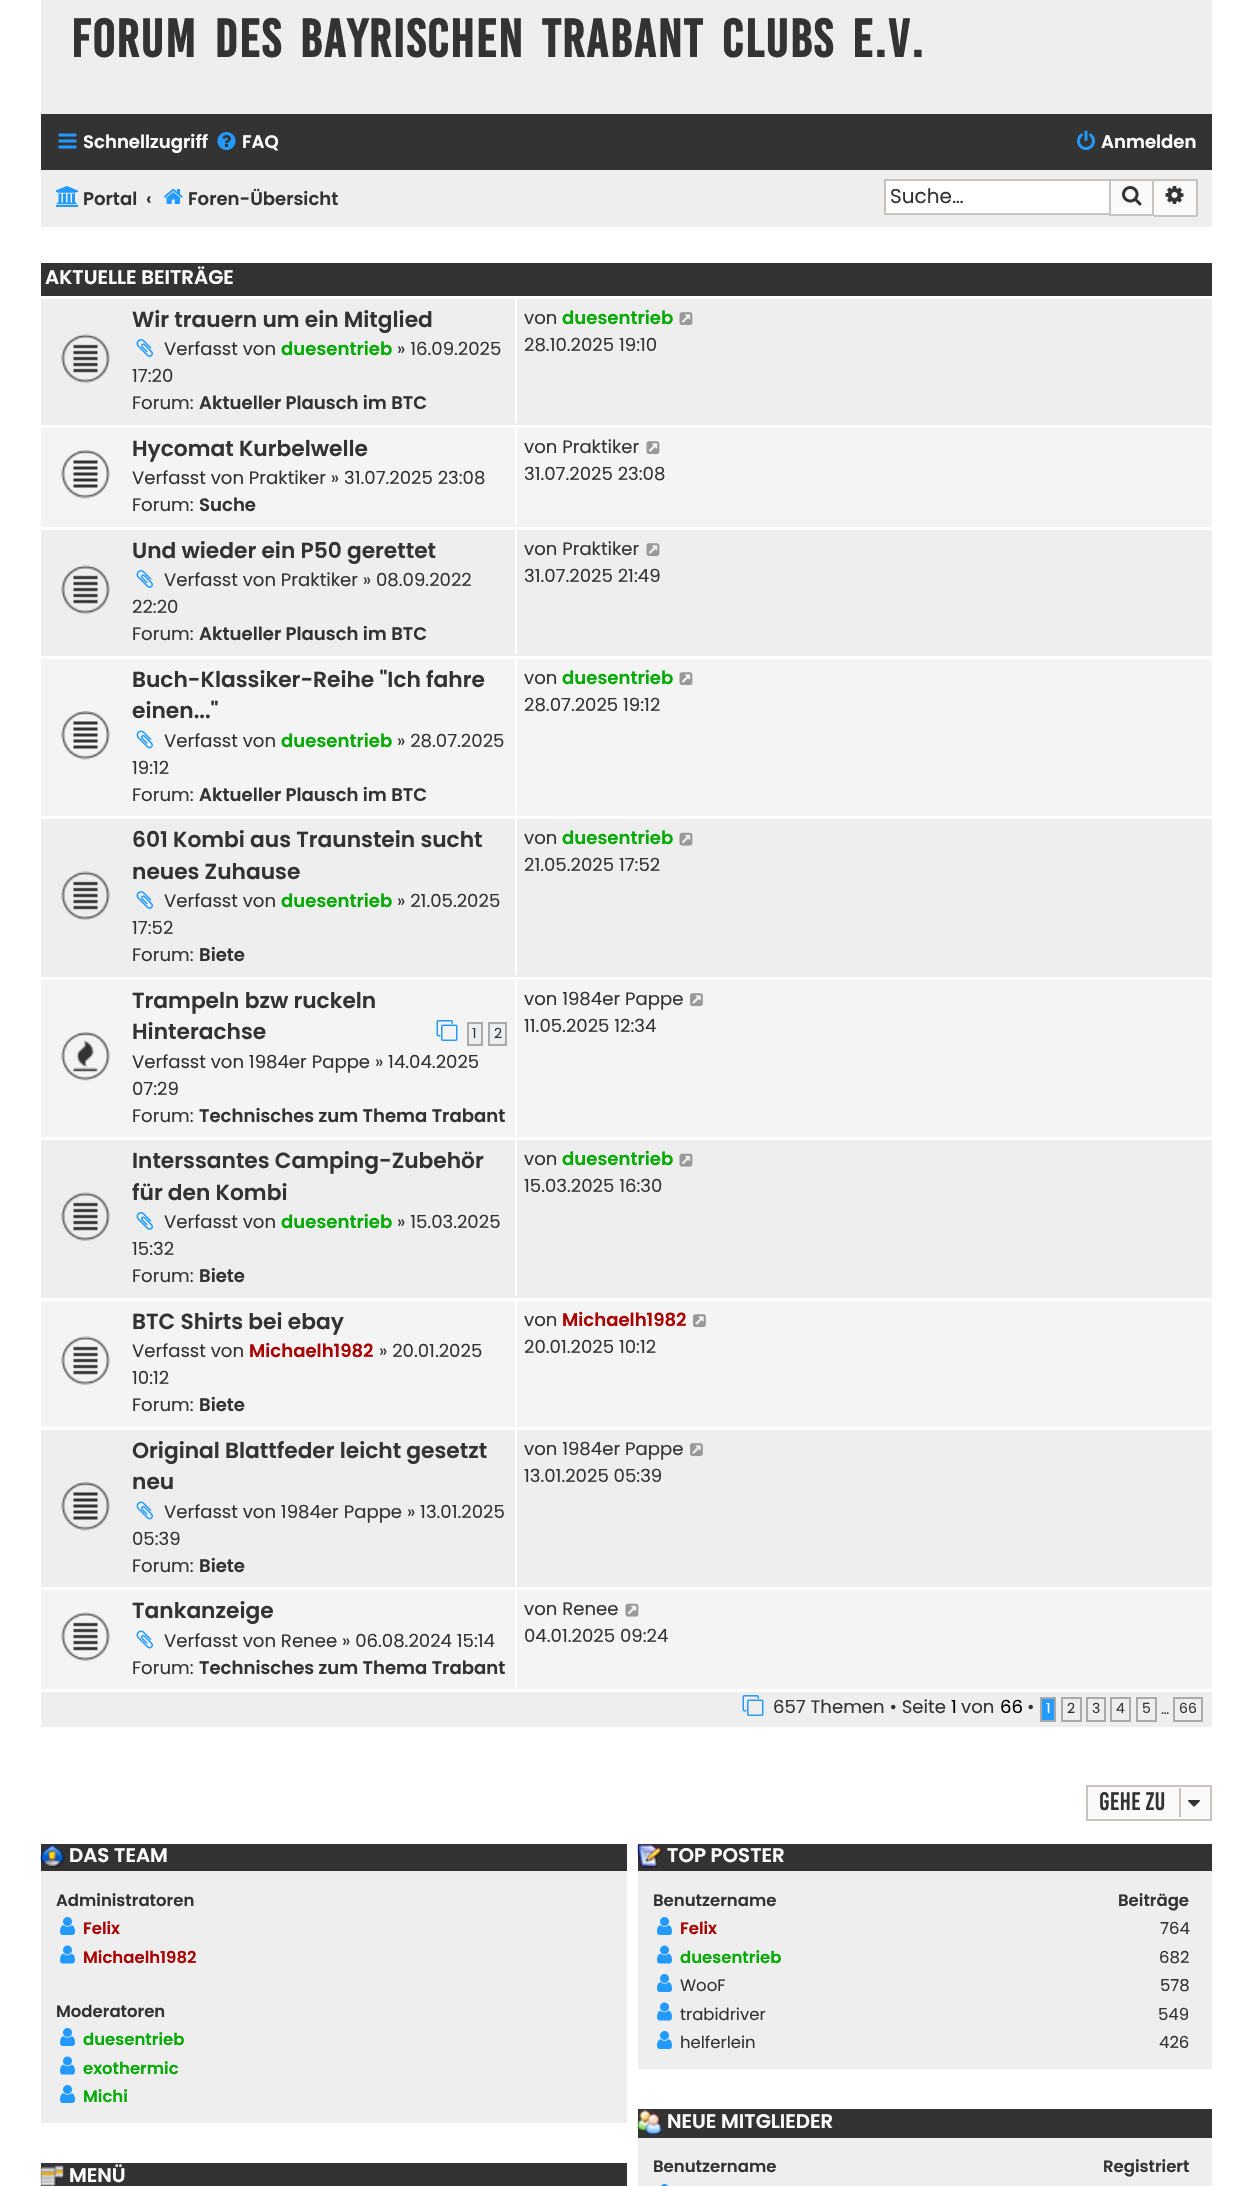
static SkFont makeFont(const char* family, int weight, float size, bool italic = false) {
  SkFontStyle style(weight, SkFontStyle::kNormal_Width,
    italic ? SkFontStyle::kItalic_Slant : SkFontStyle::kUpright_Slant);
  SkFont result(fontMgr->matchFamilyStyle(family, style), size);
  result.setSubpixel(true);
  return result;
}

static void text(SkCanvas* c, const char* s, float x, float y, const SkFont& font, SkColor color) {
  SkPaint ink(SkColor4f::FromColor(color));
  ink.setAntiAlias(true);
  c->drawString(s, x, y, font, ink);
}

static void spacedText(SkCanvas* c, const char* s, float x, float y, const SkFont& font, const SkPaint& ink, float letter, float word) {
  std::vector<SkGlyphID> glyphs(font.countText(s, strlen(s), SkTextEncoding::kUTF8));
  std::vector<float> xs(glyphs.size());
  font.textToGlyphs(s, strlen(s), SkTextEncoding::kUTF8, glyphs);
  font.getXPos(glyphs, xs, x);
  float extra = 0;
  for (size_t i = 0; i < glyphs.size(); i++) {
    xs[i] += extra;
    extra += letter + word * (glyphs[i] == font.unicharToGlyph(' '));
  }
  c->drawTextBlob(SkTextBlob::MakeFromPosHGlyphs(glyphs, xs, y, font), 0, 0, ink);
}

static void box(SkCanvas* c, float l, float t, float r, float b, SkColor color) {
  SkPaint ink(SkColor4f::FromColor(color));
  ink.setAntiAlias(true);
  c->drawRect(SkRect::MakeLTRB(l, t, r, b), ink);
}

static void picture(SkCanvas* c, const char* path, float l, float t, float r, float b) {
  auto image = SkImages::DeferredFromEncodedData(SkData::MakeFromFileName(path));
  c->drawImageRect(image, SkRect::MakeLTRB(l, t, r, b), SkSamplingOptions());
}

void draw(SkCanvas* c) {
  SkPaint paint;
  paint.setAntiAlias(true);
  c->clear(0xffffffff);
  box(c, 41, 0, 1212, 114, 0xffeeeeee);
  SkFont face1 = makeFont("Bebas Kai", 700, 41.25f);
  paint.setColor(0xff333333);
  spacedText(c, "Forum des Bayrischen Trabant Clubs e.V.", 71, 57, face1, paint, 1.5f, 6);
  box(c, 41, 114, 1212, 170, 0xff333333);
  picture(c, "img_01.png", 58, 133, 77, 149);
  SkFont face2 = makeFont("Poppins", 600, 18.1f);
  text(c, "Schnellzugriff", 83, 148, face2, 0xffffffff);
  picture(c, "img_02.png", 217, 132, 236, 150);
  text(c, "FAQ", 242, 148, face2, 0xffffffff);
  picture(c, "img_03.png", 1077, 130, 1095, 150);
  text(c, "Anmelden", 1101, 148, face2, 0xffffffff);
  box(c, 41, 170, 1212, 227, 0xffeeeeee);
  picture(c, "img_04.png", 56, 186, 78, 207);
  text(c, "Portal", 83, 205, face2, 0xff333333);
  text(c, "‹", 146, 205, face2, 0xff333333);
  picture(c, "img_05.png", 163, 189, 183, 204);
  text(c, "Foren-Übersicht", 188, 205, face2, 0xff333333);
  box(c, 886, 181, 1109, 213, 0xffffffff);
  box(c, 884, 179, 1109, 181, 0xffc7c3bf);
  box(c, 884, 213, 1109, 215, 0xffc7c3bf);
  box(c, 884, 179, 886, 215, 0xffc7c3bf);
  SkFont face3 = makeFont("Poppins", 400, 20);
  text(c, "Suche…", 890, 203, face3, 0xff333333);
  paint.setColor(0xfffafafa);
  c->drawRect(SkRect::MakeLTRB(1110, 180, 1153, 215), paint);
  paint.setStyle(SkPaint::kStroke_Style);
  paint.setStrokeWidth(2);
  paint.setColor(0xffc7c3bf);
  c->drawRect(SkRect::MakeLTRB(1110, 180, 1153, 215), paint);
  picture(c, "img_06.png", 1122, 186, 1142, 206);
  box(c, 1154, 181, 1196, 215, 0xfffafafa);
  box(c, 1154, 179, 1197, 181, 0xffc7c3bf);
  box(c, 1196, 179, 1198, 216, 0xffc7c3bf);
  box(c, 1154, 215, 1197, 217, 0xffc7c3bf);
  picture(c, "img_07.png", 1165, 186, 1184, 204);
  box(c, 41, 263, 1212, 296, 0xff333333);
  SkFont face4 = makeFont("Poppins", 600, 19.75f);
  text(c, "AKTUELLE BEITRÄGE", 45, 284, face4, 0xffffffff);
  box(c, 41, 299, 1212, 425, 0xffeeeeee);
  picture(c, "img_08.png", 61, 334, 110, 383);
  SkFont face5 = makeFont("Poppins", 600, 21.75f);
  text(c, "Wir trauern um ein Mitglied", 132, 327, face5, 0xff333333);
  picture(c, "img_09.png", 136, 339, 153, 357);
  SkFont face6 = makeFont("Poppins", 400, 18.1f);
  text(c, "Verfasst von", 164, 355, face6, 0xff333333);
  text(c, "duesentrieb", 281, 355, face2, 0xff00aa00);
  text(c, "» 16.09.2025", 397, 355, face6, 0xff333333);
  text(c, "17:20", 132, 382, face6, 0xff333333);
  text(c, "Forum:", 132, 409, face6, 0xff333333);
  text(c, "Aktueller Plausch im BTC", 199, 409, face2, 0xff333333);
  box(c, 515, 299, 517, 423, 0xffffffff);
  text(c, "von", 524, 324, face6, 0xff333333);
  text(c, "duesentrieb", 562, 324, face2, 0xff00aa00);
  picture(c, "img_10.png", 679, 312, 693, 326);
  text(c, "28.10.2025 19:10", 524, 351, face6, 0xff333333);
  box(c, 41, 428, 1212, 527, 0xfff4f4f4);
  picture(c, "img_11.png", 61, 450, 110, 499);
  text(c, "Hycomat Kurbelwelle", 132, 456, face5, 0xff333333);
  text(c, "Verfasst von Praktiker » 31.07.2025 23:08", 132, 484, face6, 0xff333333);
  text(c, "Forum:", 132, 511, face6, 0xff333333);
  text(c, "Suche", 199, 511, face2, 0xff333333);
  box(c, 515, 428, 517, 525, 0xffffffff);
  text(c, "von Praktiker", 524, 453, face6, 0xff333333);
  picture(c, "img_12.png", 646, 441, 660, 455);
  text(c, "31.07.2025 23:08", 524, 480, face6, 0xff333333);
  box(c, 41, 530, 1212, 656, 0xffeeeeee);
  picture(c, "img_08.png", 61, 565, 110, 614);
  text(c, "Und wieder ein P50 gerettet", 132, 558, face5, 0xff333333);
  picture(c, "img_09.png", 136, 570, 153, 588);
  text(c, "Verfasst von Praktiker » 08.09.2022", 164, 586, face6, 0xff333333);
  text(c, "22:20", 132, 613, face6, 0xff333333);
  text(c, "Forum:", 132, 640, face6, 0xff333333);
  text(c, "Aktueller Plausch im BTC", 199, 640, face2, 0xff333333);
  box(c, 515, 530, 517, 654, 0xffffffff);
  text(c, "von Praktiker", 524, 555, face6, 0xff333333);
  picture(c, "img_10.png", 646, 543, 660, 557);
  text(c, "31.07.2025 21:49", 524, 582, face6, 0xff333333);
  box(c, 41, 659, 1212, 816, 0xfff4f4f4);
  picture(c, "img_11.png", 61, 711, 110, 760);
  text(c, "Buch-Klassiker-Reihe \"Ich fahre", 132, 687, face5, 0xff333333);
  text(c, "einen...\"", 132, 718, face5, 0xff333333);
  picture(c, "img_13.png", 136, 730, 153, 749);
  text(c, "Verfasst von", 164, 747, face6, 0xff333333);
  text(c, "duesentrieb", 281, 747, face2, 0xff00aa00);
  text(c, "» 28.07.2025", 397, 747, face6, 0xff333333);
  text(c, "19:12", 132, 774, face6, 0xff333333);
  text(c, "Forum:", 132, 801, face6, 0xff333333);
  text(c, "Aktueller Plausch im BTC", 199, 801, face2, 0xff333333);
  box(c, 515, 659, 517, 815, 0xffffffff);
  text(c, "von", 524, 684, face6, 0xff333333);
  text(c, "duesentrieb", 562, 684, face2, 0xff00aa00);
  picture(c, "img_12.png", 679, 672, 693, 686);
  text(c, "28.07.2025 19:12", 524, 711, face6, 0xff333333);
  box(c, 41, 819, 1212, 977, 0xffeeeeee);
  picture(c, "img_08.png", 61, 871, 110, 920);
  text(c, "601 Kombi aus Traunstein sucht", 132, 847, face5, 0xff333333);
  text(c, "neues Zuhause", 132, 879, face5, 0xff333333);
  picture(c, "img_09.png", 136, 891, 153, 909);
  text(c, "Verfasst von", 164, 907, face6, 0xff333333);
  text(c, "duesentrieb", 281, 907, face2, 0xff00aa00);
  text(c, "» 21.05.2025", 397, 907, face6, 0xff333333);
  text(c, "17:52", 132, 934, face6, 0xff333333);
  text(c, "Forum:", 132, 961, face6, 0xff333333);
  text(c, "Biete", 199, 961, face2, 0xff333333);
  box(c, 515, 819, 517, 975, 0xffffffff);
  text(c, "von", 524, 844, face6, 0xff333333);
  text(c, "duesentrieb", 562, 844, face2, 0xff00aa00);
  picture(c, "img_14.png", 679, 832, 693, 846);
  text(c, "21.05.2025 17:52", 524, 871, face6, 0xff333333);
  box(c, 41, 980, 1212, 1137, 0xfff4f4f4);
  picture(c, "img_15.png", 61, 1032, 110, 1081);
  text(c, "Trampeln bzw ruckeln", 132, 1008, face5, 0xff333333);
  text(c, "Hinterachse", 132, 1039, face5, 0xff333333);
  picture(c, "img_16.png", 436, 1020, 458, 1041);
  paint.setStyle(SkPaint::kFill_Style);
  paint.setColor(0xffecedee);
  c->drawRect(SkRect::MakeLTRB(468, 1023, 482, 1045), paint);
  paint.setStyle(SkPaint::kStroke_Style);
  paint.setColor(0xffaaaaaa);
  c->drawRect(SkRect::MakeLTRB(468, 1023, 482, 1045), paint);
  SkFont face7 = makeFont("Poppins", 400, 14);
  text(c, "1", 472, 1038, face7, 0xff333333);
  paint.setStyle(SkPaint::kFill_Style);
  paint.setColor(0xffecedee);
  c->drawRect(SkRect::MakeLTRB(489, 1023, 506, 1045), paint);
  paint.setStyle(SkPaint::kStroke_Style);
  paint.setColor(0xffaaaaaa);
  c->drawRect(SkRect::MakeLTRB(489, 1023, 506, 1045), paint);
  text(c, "2", 494, 1038, face7, 0xff333333);
  text(c, "Verfasst von 1984er Pappe » 14.04.2025", 132, 1068, face6, 0xff333333);
  text(c, "07:29", 132, 1095, face6, 0xff333333);
  text(c, "Forum:", 132, 1122, face6, 0xff333333);
  text(c, "Technisches zum Thema Trabant", 199, 1122, face2, 0xff333333);
  box(c, 515, 980, 517, 1136, 0xffffffff);
  text(c, "von 1984er Pappe", 524, 1005, face6, 0xff333333);
  picture(c, "img_17.png", 690, 993, 703, 1007);
  text(c, "11.05.2025 12:34", 524, 1032, face6, 0xff333333);
  box(c, 41, 1140, 1212, 1298, 0xffeeeeee);
  picture(c, "img_08.png", 61, 1192, 110, 1241);
  text(c, "Interssantes Camping-Zubehör", 132, 1168, face5, 0xff333333);
  text(c, "für den Kombi", 132, 1200, face5, 0xff333333);
  picture(c, "img_09.png", 136, 1212, 153, 1230);
  text(c, "Verfasst von", 164, 1228, face6, 0xff333333);
  text(c, "duesentrieb", 281, 1228, face2, 0xff00aa00);
  text(c, "» 15.03.2025", 397, 1228, face6, 0xff333333);
  text(c, "15:32", 132, 1255, face6, 0xff333333);
  text(c, "Forum:", 132, 1282, face6, 0xff333333);
  text(c, "Biete", 199, 1282, face2, 0xff333333);
  box(c, 515, 1140, 517, 1296, 0xffffffff);
  text(c, "von", 524, 1165, face6, 0xff333333);
  text(c, "duesentrieb", 562, 1165, face2, 0xff00aa00);
  picture(c, "img_14.png", 679, 1153, 693, 1167);
  text(c, "15.03.2025 16:30", 524, 1192, face6, 0xff333333);
  box(c, 41, 1301, 1212, 1427, 0xfff4f4f4);
  picture(c, "img_18.png", 61, 1336, 110, 1385);
  text(c, "BTC Shirts bei ebay", 132, 1329, face5, 0xff333333);
  text(c, "Verfasst von", 132, 1357, face6, 0xff333333);
  text(c, "Michaelh1982", 249, 1357, face2, 0xffaa0000);
  text(c, "» 20.01.2025", 379, 1357, face6, 0xff333333);
  text(c, "10:12", 132, 1384, face6, 0xff333333);
  text(c, "Forum:", 132, 1411, face6, 0xff333333);
  text(c, "Biete", 199, 1411, face2, 0xff333333);
  box(c, 515, 1301, 517, 1425, 0xffffffff);
  text(c, "von", 524, 1326, face6, 0xff333333);
  text(c, "Michaelh1982", 562, 1326, face2, 0xffaa0000);
  picture(c, "img_17.png", 693, 1314, 706, 1328);
  text(c, "20.01.2025 10:12", 524, 1353, face6, 0xff333333);
  box(c, 41, 1430, 1212, 1587, 0xffeeeeee);
  picture(c, "img_19.png", 61, 1482, 110, 1531);
  text(c, "Original Blattfeder leicht gesetzt", 132, 1458, face5, 0xff333333);
  text(c, "neu", 132, 1489, face5, 0xff333333);
  picture(c, "img_20.png", 136, 1501, 153, 1520);
  text(c, "Verfasst von 1984er Pappe » 13.01.2025", 164, 1518, face6, 0xff333333);
  text(c, "05:39", 132, 1545, face6, 0xff333333);
  text(c, "Forum:", 132, 1572, face6, 0xff333333);
  text(c, "Biete", 199, 1572, face2, 0xff333333);
  box(c, 515, 1430, 517, 1586, 0xffffffff);
  text(c, "von 1984er Pappe", 524, 1455, face6, 0xff333333);
  picture(c, "img_21.png", 690, 1443, 703, 1457);
  text(c, "13.01.2025 05:39", 524, 1482, face6, 0xff333333);
  box(c, 41, 1590, 1212, 1689, 0xfff4f4f4);
  picture(c, "img_18.png", 61, 1612, 110, 1661);
  text(c, "Tankanzeige", 132, 1618, face5, 0xff333333);
  picture(c, "img_13.png", 136, 1630, 153, 1649);
  text(c, "Verfasst von Renee » 06.08.2024 15:14", 164, 1647, face6, 0xff333333);
  text(c, "Forum:", 132, 1674, face6, 0xff333333);
  text(c, "Technisches zum Thema Trabant", 199, 1674, face2, 0xff333333);
  box(c, 515, 1590, 517, 1688, 0xffffffff);
  text(c, "von Renee", 524, 1615, face6, 0xff333333);
  picture(c, "img_22.png", 625, 1603, 639, 1617);
  text(c, "04.01.2025 09:24", 524, 1642, face6, 0xff333333);
  box(c, 41, 1692, 1212, 1727, 0xffeeeeee);
  picture(c, "img_23.png", 742, 1695, 764, 1716);
  text(c, "657 Themen • Seite", 773, 1713, face6, 0xff333333);
  text(c, "1", 951, 1713, face6, 0xff000000);
  text(c, "von", 961, 1713, face6, 0xff333333);
  text(c, "66", 1000, 1713, face6, 0xff000000);
  text(c, "•", 1027, 1713, face6, 0xff333333);
  paint.setStyle(SkPaint::kFill_Style);
  paint.setColor(0xff239aff);
  c->drawRect(SkRect::MakeLTRB(1041, 1698, 1055, 1721), paint);
  paint.setStyle(SkPaint::kStroke_Style);
  paint.setColor(0xffaaaaaa);
  c->drawRect(SkRect::MakeLTRB(1041, 1698, 1055, 1721), paint);
  text(c, "1", 1046, 1713, face7, 0xffffffff);
  c->drawRect(SkRect::MakeLTRB(1062, 1698, 1081, 1721), paint);
  text(c, "2", 1067, 1713, face7, 0xff333333);
  c->drawRect(SkRect::MakeLTRB(1087, 1698, 1105, 1721), paint);
  text(c, "3", 1092, 1713, face7, 0xff333333);
  c->drawRect(SkRect::MakeLTRB(1111, 1698, 1130, 1721), paint);
  text(c, "4", 1116, 1713, face7, 0xff333333);
  c->drawRect(SkRect::MakeLTRB(1137, 1698, 1156, 1721), paint);
  text(c, "5", 1142, 1713, face7, 0xff333333);
  c->drawRect(SkRect::MakeLTRB(1174, 1698, 1202, 1721), paint);
  text(c, "66", 1179, 1713, face7, 0xff333333);
  text(c, "…", 1161, 1714, face7, 0xff333333);
  paint.setStyle(SkPaint::kFill_Style);
  paint.setColor(0xfffafafa);
  c->drawRect(SkRect::MakeLTRB(1087, 1786, 1211, 1820), paint);
  paint.setStyle(SkPaint::kStroke_Style);
  paint.setColor(0xffc7c3bf);
  c->drawRect(SkRect::MakeLTRB(1087, 1786, 1211, 1820), paint);
  SkFont face8 = makeFont("Bebas Kai", 400, 19.5f);
  text(c, "Gehe zu", 1099, 1810, face8, 0xff333333);
  box(c, 1179, 1788, 1181, 1817, 0xffc7c3bf);
  picture(c, "img_24.png", 1188, 1800, 1200, 1807);
  box(c, 41, 1844, 627, 1871, 0xff333333);
  picture(c, "img_25.png", 40, 1844, 65, 1868);
  text(c, "DAS TEAM", 69, 1862, face4, 0xffffffff);
  box(c, 41, 1871, 627, 2123, 0xffeeeeee);
  SkFont face9 = makeFont("Poppins", 600, 16.5f);
  text(c, "Administratoren", 56, 1906, face9, 0xff333333);
  picture(c, "img_26.png", 60, 1917, 75, 1935);
  text(c, "Felix", 83, 1934, face9, 0xffaa0000);
  picture(c, "img_27.png", 60, 1945, 75, 1964);
  text(c, "Michaelh1982", 83, 1963, face9, 0xffaa0000);
  text(c, "Moderatoren", 56, 2017, face9, 0xff333333);
  picture(c, "img_26.png", 60, 2028, 75, 2046);
  text(c, "duesentrieb", 83, 2045, face9, 0xff00aa00);
  picture(c, "img_27.png", 60, 2056, 75, 2075);
  text(c, "exothermic", 83, 2074, face9, 0xff00aa00);
  picture(c, "img_26.png", 60, 2085, 75, 2103);
  text(c, "Michi", 83, 2102, face9, 0xff00aa00);
  box(c, 41, 2163, 627, 2186, 0xff333333);
  picture(c, "img_28.png", 40, 2165, 65, 2186);
  text(c, "MENÜ", 69, 2182, face4, 0xffffffff);
  box(c, 638, 1844, 1212, 1871, 0xff333333);
  picture(c, "img_29.png", 637, 1844, 662, 1868);
  text(c, "TOP POSTER", 667, 1862, face4, 0xffffffff);
  box(c, 638, 1871, 1212, 2069, 0xffeeeeee);
  text(c, "Benutzername", 653, 1906, face9, 0xff333333);
  text(c, "Beiträge", 1118, 1906, face9, 0xff333333);
  picture(c, "img_26.png", 657, 1917, 672, 1935);
  text(c, "Felix", 680, 1934, face9, 0xffaa0000);
  SkFont face10 = makeFont("Poppins", 400, 16.5f);
  text(c, "764", 1160, 1934, face10, 0xff333333);
  picture(c, "img_27.png", 657, 1945, 672, 1964);
  text(c, "duesentrieb", 680, 1963, face9, 0xff00aa00);
  text(c, "682", 1159, 1963, face10, 0xff333333);
  picture(c, "img_26.png", 657, 1974, 672, 1992);
  text(c, "WooF", 680, 1991, face10, 0xff333333);
  text(c, "578", 1160, 1991, face10, 0xff333333);
  picture(c, "img_27.png", 657, 2002, 672, 2021);
  text(c, "trabidriver", 680, 2020, face10, 0xff333333);
  text(c, "549", 1158, 2020, face10, 0xff333333);
  picture(c, "img_26.png", 657, 2031, 672, 2049);
  text(c, "helferlein", 680, 2048, face10, 0xff333333);
  text(c, "426", 1159, 2048, face10, 0xff333333);
  box(c, 638, 2109, 1212, 2138, 0xff333333);
  picture(c, "img_30.png", 637, 2110, 662, 2135);
  text(c, "NEUE MITGLIEDER", 667, 2128, face4, 0xffffffff);
  box(c, 638, 2138, 1212, 2186, 0xffeeeeee);
  text(c, "Benutzername", 653, 2172, face9, 0xff333333);
  text(c, "Registriert", 1103, 2172, face9, 0xff333333);
  picture(c, "img_31.png", 660, 2184, 669, 2186);
}
